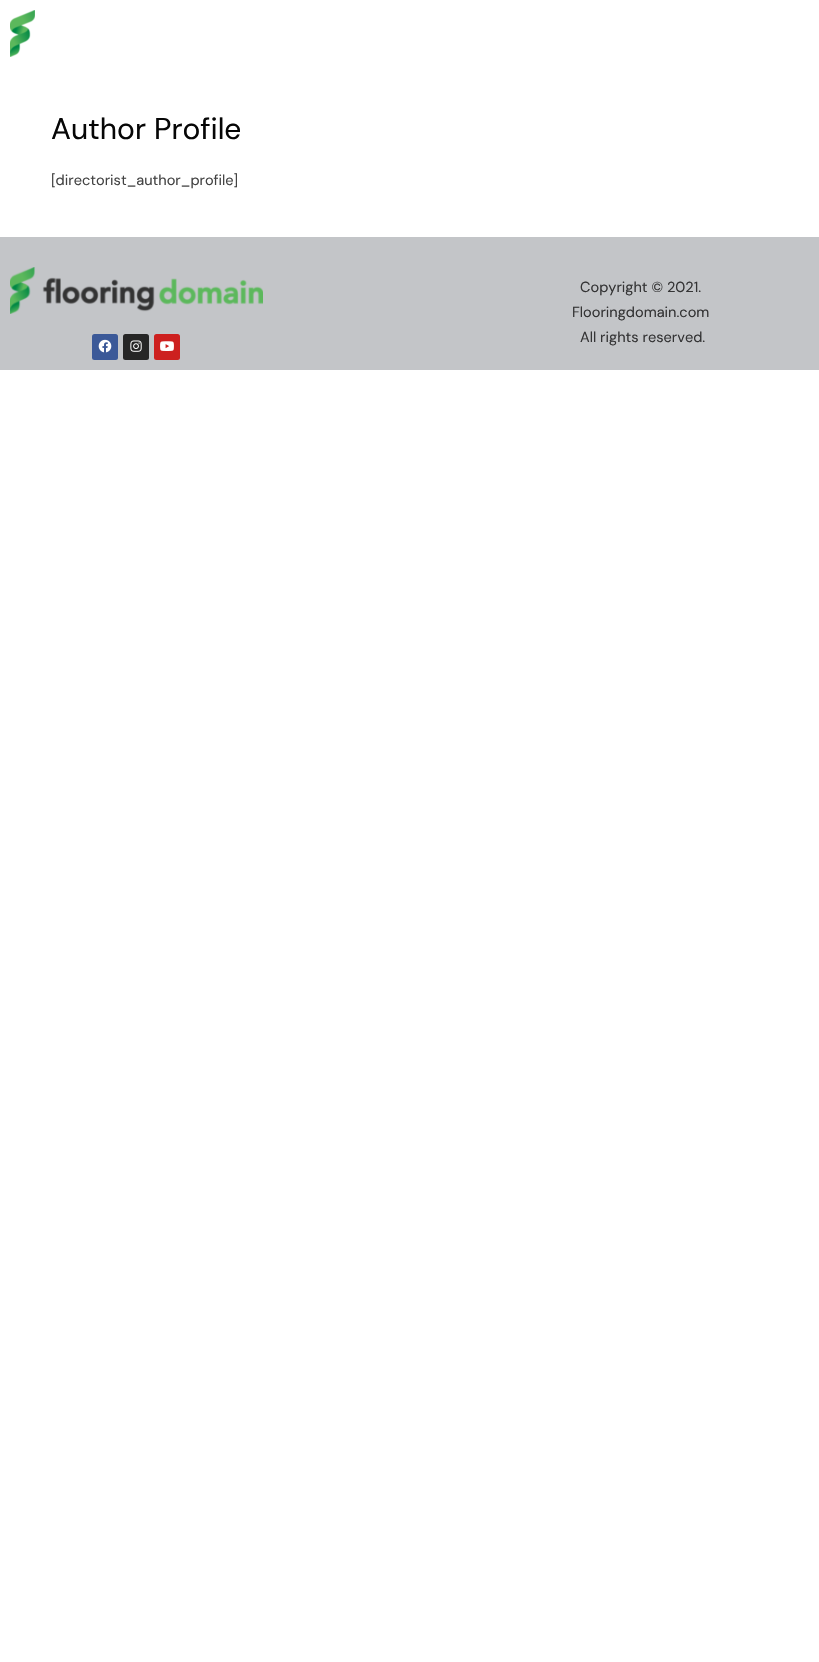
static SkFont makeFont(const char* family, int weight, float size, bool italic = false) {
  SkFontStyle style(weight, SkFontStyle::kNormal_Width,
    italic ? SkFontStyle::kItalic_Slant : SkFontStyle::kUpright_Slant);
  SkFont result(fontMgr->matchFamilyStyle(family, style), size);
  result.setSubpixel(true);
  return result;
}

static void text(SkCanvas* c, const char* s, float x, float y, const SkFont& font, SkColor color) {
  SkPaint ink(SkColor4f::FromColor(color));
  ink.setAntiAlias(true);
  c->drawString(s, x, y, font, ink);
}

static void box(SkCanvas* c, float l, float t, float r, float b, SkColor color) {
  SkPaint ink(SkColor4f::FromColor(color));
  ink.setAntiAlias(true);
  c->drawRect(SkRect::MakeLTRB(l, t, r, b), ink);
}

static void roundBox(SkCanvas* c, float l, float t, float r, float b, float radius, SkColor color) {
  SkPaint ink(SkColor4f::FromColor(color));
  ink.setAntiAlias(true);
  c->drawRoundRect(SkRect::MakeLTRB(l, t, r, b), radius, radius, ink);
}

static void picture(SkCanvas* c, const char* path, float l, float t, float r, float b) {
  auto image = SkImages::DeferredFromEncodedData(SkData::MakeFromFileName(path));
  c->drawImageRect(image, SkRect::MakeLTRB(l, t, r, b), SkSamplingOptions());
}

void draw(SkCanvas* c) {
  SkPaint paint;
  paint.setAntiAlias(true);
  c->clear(0xffffffff);
  picture(c, "img_01.png", 10, 10, 35, 57);
  SkFont face1 = makeFont("DM Sans", 400, 30);
  text(c, "Author Profile", 51, 139, face1, 0xff060606);
  SkFont face2 = makeFont("DM Sans", 400, 14.6f);
  text(c, "[directorist_author_profile]", 51, 185, face2, 0xff434343);
  box(c, 0, 237, 819, 370, 0xffc3c5c8);
  picture(c, "img_02.png", 10, 267, 263, 314);
  roundBox(c, 92, 334, 118, 360, 2.5f, 0xff3b5998);
  picture(c, "img_03.png", 98, 339, 112, 353);
  roundBox(c, 123, 334, 149, 360, 2.5f, 0xff262626);
  picture(c, "img_04.png", 130, 340, 142, 352);
  roundBox(c, 154, 334, 180, 360, 2.5f, 0xffcd201f);
  picture(c, "img_05.png", 160, 341, 174, 351);
  text(c, "Copyright © 2021.", 580, 292, face2, 0xff343435);
  text(c, "Flooringdomain.com", 572, 317, face2, 0xff343435);
  text(c, "All rights reserved.", 580, 342, face2, 0xff343435);
}
